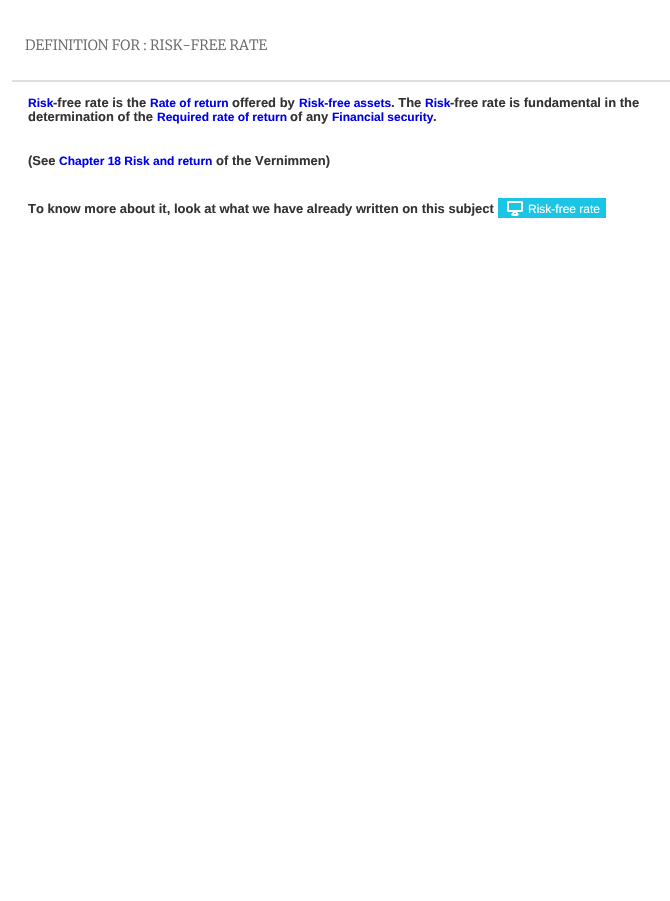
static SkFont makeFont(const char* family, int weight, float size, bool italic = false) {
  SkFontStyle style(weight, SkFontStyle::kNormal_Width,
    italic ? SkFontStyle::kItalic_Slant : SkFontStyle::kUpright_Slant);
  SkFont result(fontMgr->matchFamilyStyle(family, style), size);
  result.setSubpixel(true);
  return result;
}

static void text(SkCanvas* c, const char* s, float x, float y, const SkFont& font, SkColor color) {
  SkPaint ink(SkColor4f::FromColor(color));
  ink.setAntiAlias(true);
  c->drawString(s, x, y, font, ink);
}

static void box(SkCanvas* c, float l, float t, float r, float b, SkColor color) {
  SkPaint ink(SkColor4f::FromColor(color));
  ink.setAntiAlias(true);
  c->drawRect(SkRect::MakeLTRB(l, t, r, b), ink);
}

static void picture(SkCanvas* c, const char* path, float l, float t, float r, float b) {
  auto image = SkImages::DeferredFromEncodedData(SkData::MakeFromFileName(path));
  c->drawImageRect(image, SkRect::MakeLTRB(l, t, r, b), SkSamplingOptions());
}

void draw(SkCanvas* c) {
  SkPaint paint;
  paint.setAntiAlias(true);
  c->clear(0xffffffff);
  SkFont face1 = makeFont("Merriweather", 300, 14);
  text(c, "DEFINITION FOR : RISK-FREE RATE", 25, 50, face1, 0xff666666);
  box(c, 12, 80, 670, 82, 0xffdedede);
  SkFont face2 = makeFont("Liberation Sans", 700, 12);
  text(c, "Risk", 28, 107, face2, 0xff0000ee);
  SkFont face3 = makeFont("Liberation Sans", 700, 13);
  text(c, "-free rate is the", 53, 107, face3, 0xff333333);
  text(c, "Rate of return", 150, 107, face2, 0xff0000ee);
  text(c, "offered by", 232, 107, face3, 0xff333333);
  text(c, "Risk-free assets", 299, 107, face2, 0xff0000ee);
  text(c, ". The", 391, 107, face3, 0xff333333);
  text(c, "Risk", 425, 107, face2, 0xff0000ee);
  text(c, "-free rate is fundamental in the", 450, 107, face3, 0xff333333);
  text(c, "determination of the", 28, 121, face3, 0xff333333);
  text(c, "Required rate of return", 157, 121, face2, 0xff0000ee);
  text(c, "of any", 290, 121, face3, 0xff333333);
  text(c, "Financial security", 332, 121, face2, 0xff0000ee);
  text(c, ".", 433, 121, face3, 0xff333333);
  text(c, "(See", 28, 165, face3, 0xff333333);
  text(c, "Chapter 18 Risk and return", 59, 165, face2, 0xff0000ee);
  text(c, "of the Vernimmen)", 216, 165, face3, 0xff333333);
  text(c, "To know more about it, look at what we have already written on this subject", 28, 213, face3, 0xff333333);
  box(c, 498, 198, 606, 218, 0xff1bc5e5);
  picture(c, "img_01.png", 507, 201, 532, 216);
  SkFont face4 = makeFont("Liberation Sans", 400, 12);
  text(c, "Risk-free rate", 528, 213, face4, 0xffffffff);
}
